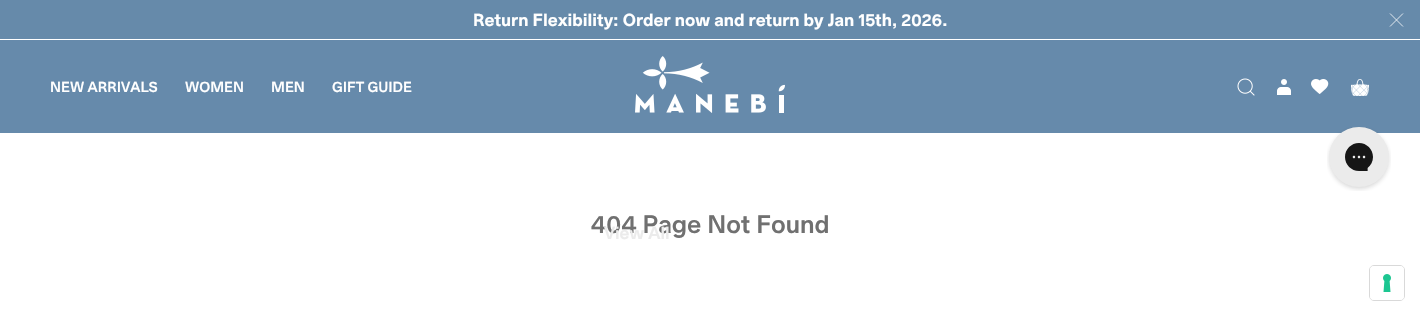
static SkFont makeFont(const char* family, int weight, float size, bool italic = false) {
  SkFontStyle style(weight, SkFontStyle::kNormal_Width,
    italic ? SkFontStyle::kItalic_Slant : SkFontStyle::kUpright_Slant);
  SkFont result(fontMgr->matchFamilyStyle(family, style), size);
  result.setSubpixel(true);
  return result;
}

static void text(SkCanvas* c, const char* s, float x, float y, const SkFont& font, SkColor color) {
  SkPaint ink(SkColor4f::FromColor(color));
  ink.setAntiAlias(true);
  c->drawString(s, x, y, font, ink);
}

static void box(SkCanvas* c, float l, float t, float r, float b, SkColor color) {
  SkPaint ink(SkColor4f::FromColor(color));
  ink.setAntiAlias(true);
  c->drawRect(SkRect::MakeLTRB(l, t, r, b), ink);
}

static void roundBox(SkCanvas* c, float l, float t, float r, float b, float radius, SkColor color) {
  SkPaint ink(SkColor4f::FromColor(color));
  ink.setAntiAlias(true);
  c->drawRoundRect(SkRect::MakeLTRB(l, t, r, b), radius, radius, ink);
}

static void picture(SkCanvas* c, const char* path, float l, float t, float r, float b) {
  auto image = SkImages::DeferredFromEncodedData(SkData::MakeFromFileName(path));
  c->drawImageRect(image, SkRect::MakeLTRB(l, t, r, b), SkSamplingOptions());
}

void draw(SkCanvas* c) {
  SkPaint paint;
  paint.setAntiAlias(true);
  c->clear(0xffffffff);
  box(c, 0, 0, 1420, 39, 0xff668aaa);
  SkFont face1 = makeFont("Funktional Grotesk", 700, 18);
  text(c, "Return Flexibility: Order now and return by Jan 15th, 2026.", 473, 26, face1, 0xffffffff);
  paint.setStyle(SkPaint::kStroke_Style);
  paint.setStrokeWidth(0.8f);
  paint.setColor(0xffffffff);
  c->drawPath(SkPathBuilder().moveTo(1390, 13.5f).lineTo(1403, 26.5f).moveTo(1390, 26.5f).lineTo(1403, 13.5f).detach(), paint);
  box(c, 0, 40, 1420, 133, 0xff668aab);
  SkFont face2 = makeFont("Funktional Grotesk", 600, 15);
  text(c, "NEW ARRIVALS", 50, 92, face2, 0xffffffff);
  text(c, "WOMEN", 185, 92, face2, 0xffffffff);
  SkFont face3 = makeFont("Funktional Grotesk", 600, 26);
  text(c, "404 Page Not Found", 591, 233, face3, 0xff707070);
  SkFont face4 = makeFont("Funktional Grotesk", 600, 18);
  text(c, "View All", 604, 239, face4, 0xffebebeb);
  text(c, "MEN", 271, 92, face2, 0xffffffff);
  text(c, "GIFT GUIDE", 332, 92, face2, 0xffffffff);
  picture(c, "img_01.png", 635, 56, 785, 113);
  picture(c, "img_02.png", 1237, 78, 1255, 96);
  picture(c, "img_03.png", 1277, 79, 1291, 95);
  picture(c, "img_04.png", 1311, 79, 1329, 94);
  picture(c, "img_05.png", 1351, 79, 1369, 96);
  picture(c, "img_06.png", 1327, 127, 1391, 191);
  paint.setStrokeWidth(1);
  paint.setColor(0xffd9d9d9);
  c->drawRoundRect(SkRect::MakeLTRB(1369.5f, 265.5f, 1404.5f, 300.5f), 4.5f, 4.5f, paint);
  roundBox(c, 1370, 266, 1404, 300, 4, 0xffffffff);
  picture(c, "img_07.png", 1383, 274, 1391, 292);
}
